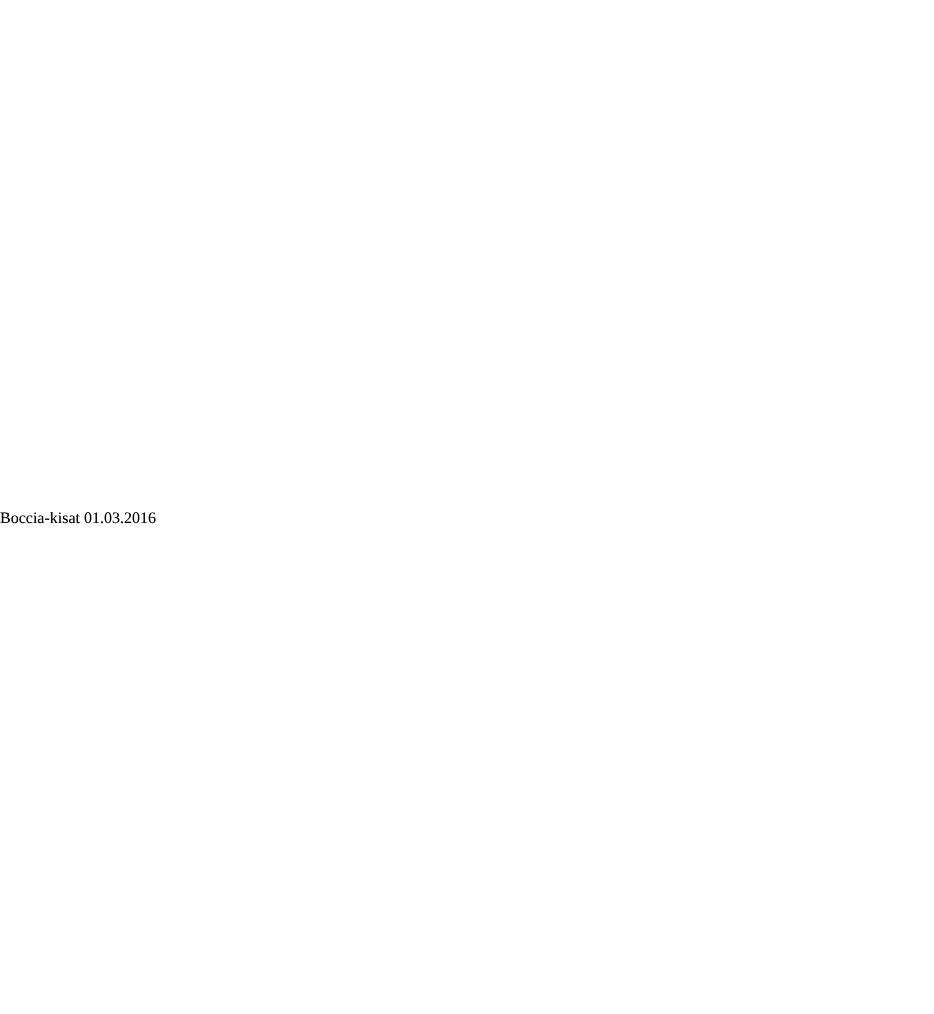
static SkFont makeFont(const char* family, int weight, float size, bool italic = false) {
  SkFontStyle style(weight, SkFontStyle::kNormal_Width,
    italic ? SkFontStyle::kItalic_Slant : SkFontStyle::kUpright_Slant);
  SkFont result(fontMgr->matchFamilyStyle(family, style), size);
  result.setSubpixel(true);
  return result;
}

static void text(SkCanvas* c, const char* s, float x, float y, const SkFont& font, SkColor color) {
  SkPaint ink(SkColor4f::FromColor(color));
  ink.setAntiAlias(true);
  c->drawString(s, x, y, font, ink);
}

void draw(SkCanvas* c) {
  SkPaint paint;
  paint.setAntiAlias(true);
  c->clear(0xffffffff);
  SkFont face1 = makeFont("Liberation Serif", 400, 16);
  text(c, "Boccia-kisat 01.03.2016", 0, 523, face1, 0xff000000);
}
